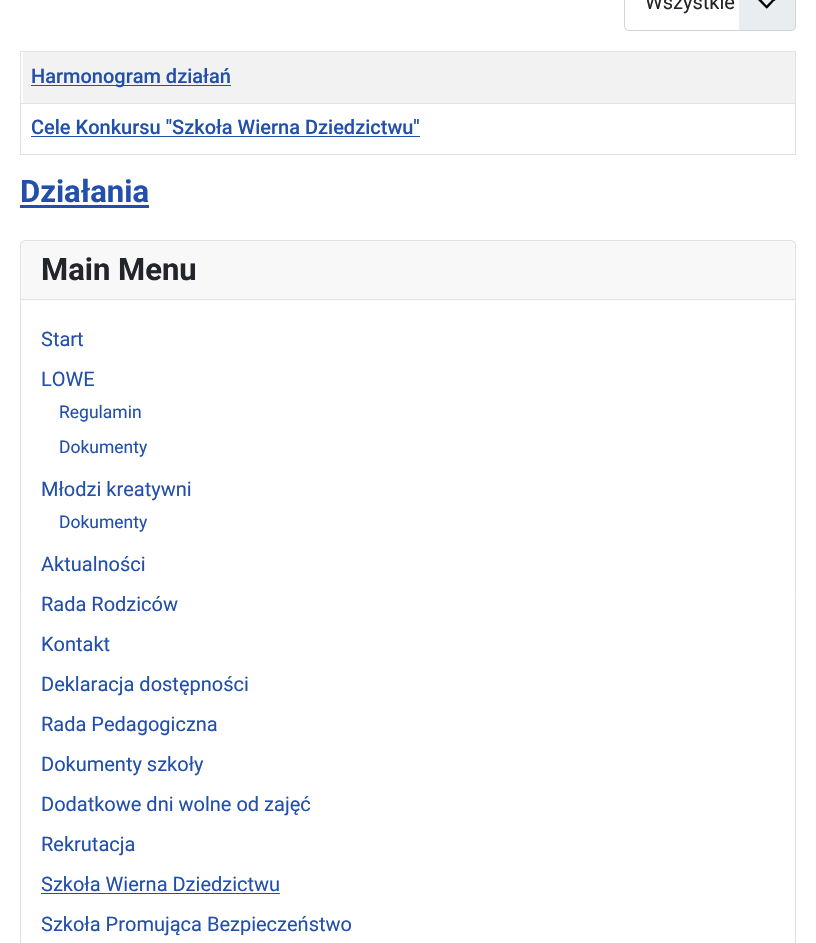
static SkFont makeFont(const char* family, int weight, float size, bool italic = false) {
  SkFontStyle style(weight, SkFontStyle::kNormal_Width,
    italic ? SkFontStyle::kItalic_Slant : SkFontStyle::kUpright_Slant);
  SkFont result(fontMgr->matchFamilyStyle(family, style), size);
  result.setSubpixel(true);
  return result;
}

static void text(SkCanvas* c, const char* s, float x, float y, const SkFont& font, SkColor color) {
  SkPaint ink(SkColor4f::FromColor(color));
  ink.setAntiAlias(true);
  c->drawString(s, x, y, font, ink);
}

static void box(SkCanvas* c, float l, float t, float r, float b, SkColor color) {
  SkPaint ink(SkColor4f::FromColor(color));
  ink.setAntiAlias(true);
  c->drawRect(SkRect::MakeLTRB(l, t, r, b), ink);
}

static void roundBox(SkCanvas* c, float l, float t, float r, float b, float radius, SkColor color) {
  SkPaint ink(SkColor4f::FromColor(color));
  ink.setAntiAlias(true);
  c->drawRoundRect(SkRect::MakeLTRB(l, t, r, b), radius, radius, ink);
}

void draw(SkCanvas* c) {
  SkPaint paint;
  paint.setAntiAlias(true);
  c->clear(0xffffffff);
  roundBox(c, 624, -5, 796, 31, 5, 0xffeaedf0);
  paint.setColor(0xff000000);
  c->drawPath(SkPathBuilder().moveTo(757.5f, -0.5f).lineTo(765, 7).cubicTo(767, 9, 766.5f, 9, 768.5f, 7).lineTo(774, 1).cubicTo(774.5f, 1, 776, 0, 775.5f, -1).cubicTo(775, -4.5f, 771.5f, 0.5f, 771.5f, 0.5f).lineTo(766.5f, 5.5f).lineTo(762, 0.5f).cubicTo(761.5f, 0.5f, 759.5f, -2.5f, 758.5f, -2).close().detach(), paint);
  paint.setColor(0xffffffff);
  c->drawPath(SkPathBuilder().moveTo(629, -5).lineTo(739, -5).lineTo(739, 31).lineTo(629, 31).cubicTo(626, 31, 624, 29, 624, 26).lineTo(624, 0).cubicTo(624, -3, 626, -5, 629, -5).close().detach(), paint);
  paint.setStyle(SkPaint::kStroke_Style);
  paint.setStrokeWidth(1);
  paint.setColor(0xffced4da);
  c->drawRoundRect(SkRect::MakeLTRB(624.5f, -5.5f, 795.5f, 30.5f), 4.5f, 4.5f, paint);
  SkFont face1 = makeFont("Roboto", 400, 20);
  text(c, "Wszystkie", 645, 9, face1, 0xff22262a);
  box(c, 20, 51, 796, 52, 0xffdfe3e7);
  box(c, 23, 52, 795, 103, 0xfff2f2f2);
  box(c, 31, 85, 231, 86, 0xff224faa);
  SkFont face2 = makeFont("Roboto", 500, 20);
  text(c, "Harmonogram działań", 31, 83, face2, 0xff224faa);
  box(c, 20, 103, 796, 104, 0xffdfe3e7);
  box(c, 20, 154, 796, 155, 0xffdfe3e7);
  box(c, 795, 51, 796, 155, 0xffdfe3e7);
  box(c, 20, 51, 21, 155, 0xffdfe3e7);
  text(c, "Cele Konkursu \"Szkoła Wierna Dziedzictwu\"", 31, 134, face2, 0xff224faa);
  box(c, 31, 136, 420, 137, 0xff224faa);
  SkFont face3 = makeFont("Roboto", 700, 31);
  text(c, "Działania", 20, 202, face3, 0xff224faa);
  box(c, 20, 205, 149, 208, 0xff224faa);
  paint.setColor(0xffdfe3e7);
  c->drawRoundRect(SkRect::MakeLTRB(20.5f, 240.5f, 795.5f, 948.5f), 4.5f, 4.5f, paint);
  box(c, 21, 241, 795, 299, 0x0822262a);
  box(c, 21, 299, 795, 300, 0xffdfe3e7);
  text(c, "Main Menu", 41, 280, face3, 0xff22262a);
  text(c, "Start", 41, 346, face1, 0xff224faa);
  text(c, "LOWE", 41, 386, face1, 0xff224faa);
  SkFont face4 = makeFont("Roboto", 400, 17.5f);
  text(c, "Regulamin", 59, 418, face4, 0xff224faa);
  text(c, "Dokumenty", 59, 453, face4, 0xff224faa);
  text(c, "Młodzi kreatywni", 41, 496, face1, 0xff224faa);
  text(c, "Dokumenty", 59, 528, face4, 0xff224faa);
  text(c, "Aktualności", 41, 571, face1, 0xff224faa);
  text(c, "Rada Rodziców", 41, 611, face1, 0xff224faa);
  text(c, "Kontakt", 41, 651, face1, 0xff224faa);
  text(c, "Deklaracja dostępności", 41, 691, face1, 0xff224faa);
  text(c, "Rada Pedagogiczna", 41, 731, face1, 0xff224faa);
  text(c, "Dokumenty szkoły", 41, 771, face1, 0xff224faa);
  text(c, "Dodatkowe dni wolne od zajęć", 41, 811, face1, 0xff224faa);
  text(c, "Rekrutacja", 41, 851, face1, 0xff224faa);
  text(c, "Szkoła Wierna Dziedzictwu", 41, 891, face1, 0xff224faa);
  box(c, 41, 893, 280, 894, 0xff224faa);
  text(c, "Szkoła Promująca Bezpieczeństwo", 41, 931, face1, 0xff224faa);
}
